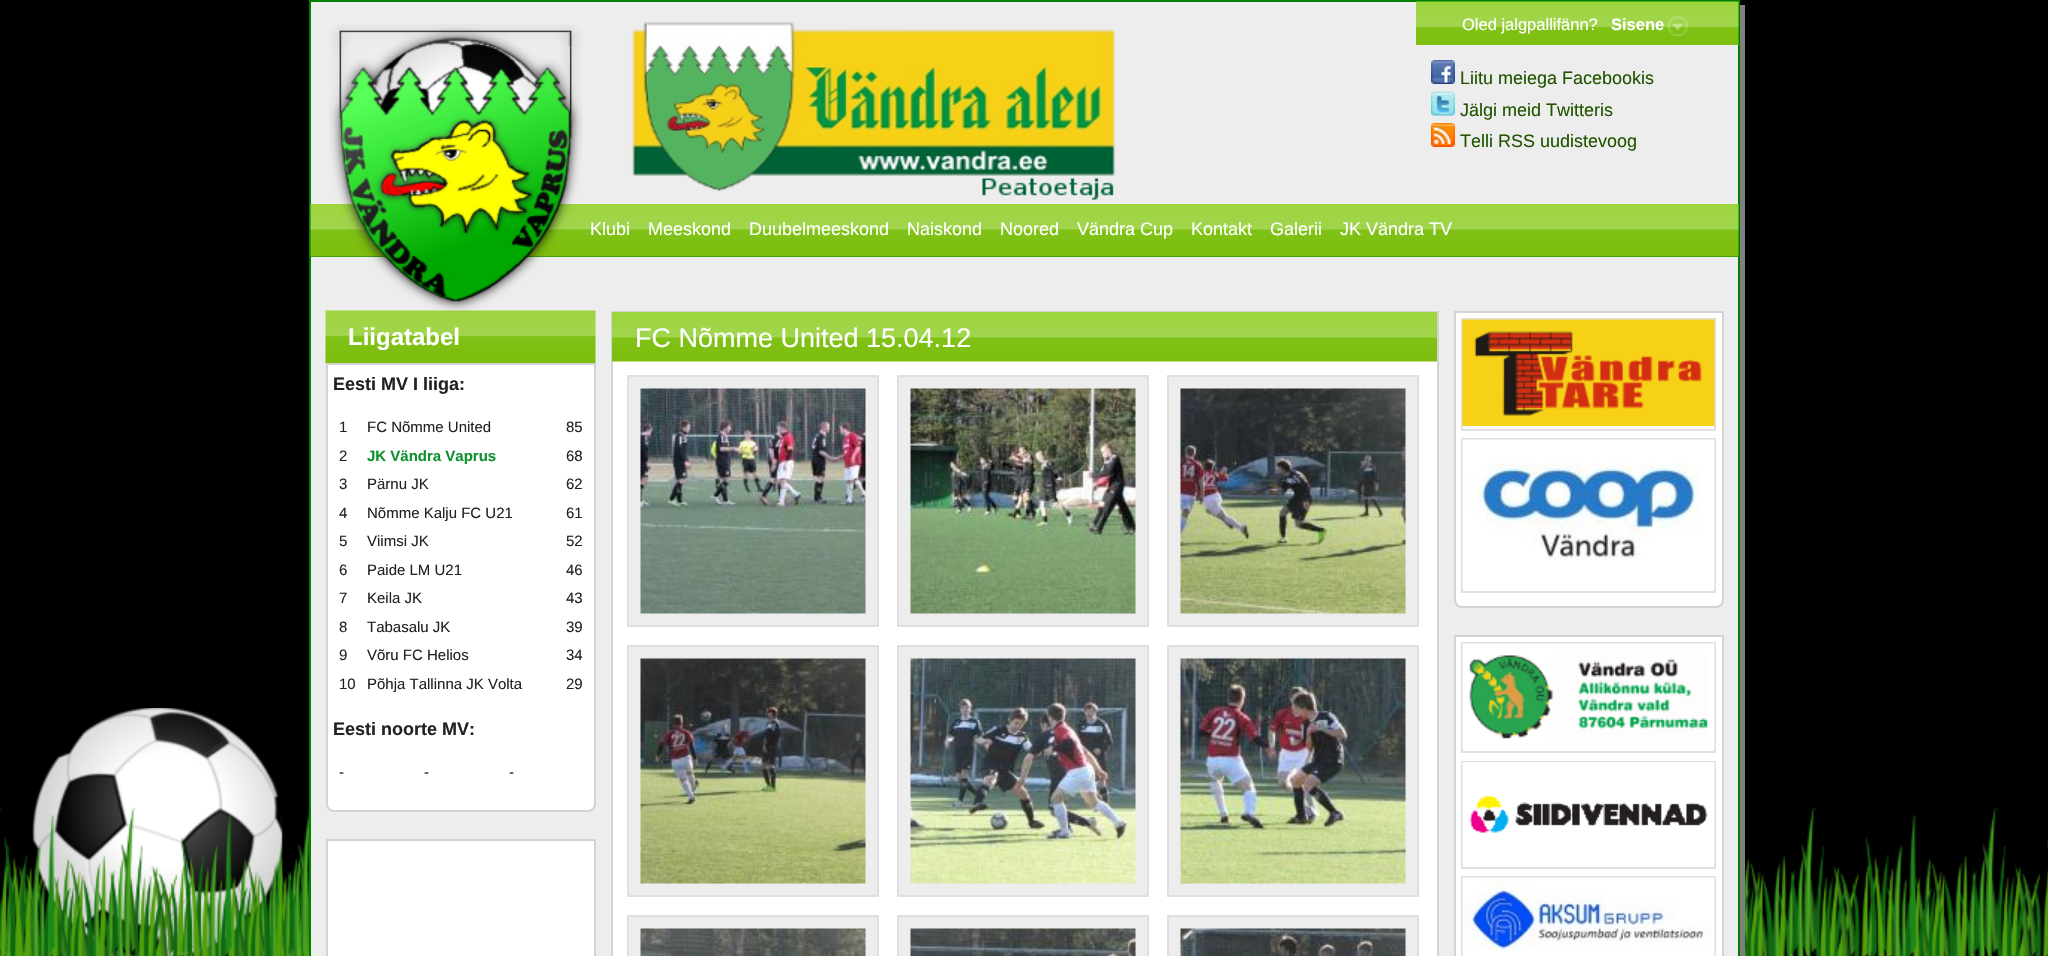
static SkFont makeFont(const char* family, int weight, float size, bool italic = false) {
  SkFontStyle style(weight, SkFontStyle::kNormal_Width,
    italic ? SkFontStyle::kItalic_Slant : SkFontStyle::kUpright_Slant);
  SkFont result(fontMgr->matchFamilyStyle(family, style), size);
  result.setSubpixel(true);
  return result;
}

static void text(SkCanvas* c, const char* s, float x, float y, const SkFont& font, SkColor color) {
  SkPaint ink(SkColor4f::FromColor(color));
  ink.setAntiAlias(true);
  c->drawString(s, x, y, font, ink);
}

static void box(SkCanvas* c, float l, float t, float r, float b, SkColor color) {
  SkPaint ink(SkColor4f::FromColor(color));
  ink.setAntiAlias(true);
  c->drawRect(SkRect::MakeLTRB(l, t, r, b), ink);
}

static void picture(SkCanvas* c, const char* path, float l, float t, float r, float b) {
  auto image = SkImages::DeferredFromEncodedData(SkData::MakeFromFileName(path));
  c->drawImageRect(image, SkRect::MakeLTRB(l, t, r, b), SkSamplingOptions());
}

void draw(SkCanvas* c) {
  SkPaint paint;
  paint.setAntiAlias(true);
  c->clear(0xff000000);
  picture(c, "img_01.png", 0, 807, 2048, 956);
  paint.setColor(0xff808080);
  c->drawPath(SkPathBuilder().moveTo(322, 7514).cubicTo(327, 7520, 335, 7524, 344, 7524).lineTo(1715, 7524).cubicTo(1732, 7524, 1745, 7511, 1745, 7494).lineTo(1745, 5).lineTo(1740, 5).lineTo(1740, 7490).cubicTo(1740, 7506, 1727, 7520, 1710, 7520).lineTo(339, 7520).cubicTo(332, 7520, 326, 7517, 322, 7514).close().detach(), paint);
  paint.setColor(0xffededed);
  c->drawRect(SkRect::MakeLTRB(310, 1, 1739, 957), paint);
  paint.setStyle(SkPaint::kStroke_Style);
  paint.setStrokeWidth(2);
  paint.setColor(0xff008000);
  c->drawRect(SkRect::MakeLTRB(310, 1, 1739, 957), paint);
  box(c, 311, 204, 1738, 257, 0xff008000);
  picture(c, "img_09.png", 310, 204, 1739, 257);
  picture(c, "img_10.png", 325, 310, 596, 363);
  picture(c, "img_02.png", 329, 24, 583, 312);
  picture(c, "img_03.png", 631, 22, 1116, 200);
  picture(c, "img_04.png", 1416, 1, 1739, 45);
  SkFont face1 = makeFont("Liberation Sans", 400, 16.5f);
  text(c, "Oled jalgpallifänn?", 1462, 30, face1, 0xffffffff);
  SkFont face2 = makeFont("Liberation Sans", 700, 16.5f);
  text(c, "Sisene", 1611, 30, face2, 0xffffffff);
  picture(c, "img_05.png", 1668, 16, 1688, 36);
  picture(c, "img_06.png", 1431, 60, 1455, 84);
  SkFont face3 = makeFont("Liberation Sans", 400, 18);
  text(c, "Liitu meiega Facebookis", 1460, 84, face3, 0xff205500);
  picture(c, "img_07.png", 1431, 91, 1455, 116);
  text(c, "Jälgi meid Twitteris", 1460, 116, face3, 0xff205500);
  picture(c, "img_08.png", 1431, 123, 1455, 147);
  text(c, "Telli RSS uudistevoog", 1460, 147, face3, 0xff205500);
  text(c, "Klubi", 590, 235, face3, 0xffffffff);
  text(c, "Meeskond", 648, 235, face3, 0xffffffff);
  text(c, "Duubelmeeskond", 749, 235, face3, 0xffffffff);
  text(c, "Naiskond", 907, 235, face3, 0xffffffff);
  text(c, "Noored", 1000, 235, face3, 0xffffffff);
  text(c, "Vändra Cup", 1077, 235, face3, 0xffffffff);
  text(c, "Kontakt", 1191, 235, face3, 0xffffffff);
  text(c, "Galerii", 1270, 235, face3, 0xffffffff);
  text(c, "JK Vändra TV", 1340, 235, face3, 0xffffffff);
  SkFont face4 = makeFont("Liberation Sans", 700, 24);
  text(c, "Liigatabel", 348, 345, face4, 0xffffffff);
  paint.setStyle(SkPaint::kFill_Style);
  paint.setColor(0xffffffff);
  c->drawPath(SkPathBuilder().moveTo(327, 364).lineTo(595, 364).lineTo(595, 804).cubicTo(595, 808, 592, 811, 588, 811).lineTo(334, 811).cubicTo(330, 811, 327, 808, 327, 804).close().detach(), paint);
  paint.setStyle(SkPaint::kStroke_Style);
  paint.setColor(0xffd3d3d3);
  c->drawPath(SkPathBuilder().moveTo(327, 364).lineTo(595, 364).lineTo(595, 804).cubicTo(595, 808, 592, 811, 588, 811).lineTo(334, 811).cubicTo(330, 811, 327, 808, 327, 804).close().detach(), paint);
  SkFont face5 = makeFont("Liberation Sans", 700, 18);
  text(c, "Eesti MV I liiga:", 333, 390, face5, 0xff222222);
  SkFont face6 = makeFont("Liberation Sans", 400, 15);
  text(c, "1", 339, 432, face6, 0xff222222);
  text(c, "FC Nõmme United", 367, 432, face6, 0xff222222);
  text(c, "85", 566, 432, face6, 0xff222222);
  text(c, "2", 339, 461, face6, 0xff222222);
  SkFont face7 = makeFont("Liberation Sans", 700, 15);
  text(c, "JK Vändra Vaprus", 367, 461, face7, 0xff0d912e);
  text(c, "68", 566, 461, face6, 0xff222222);
  text(c, "3", 339, 489, face6, 0xff222222);
  text(c, "Pärnu JK", 367, 489, face6, 0xff222222);
  text(c, "62", 566, 489, face6, 0xff222222);
  text(c, "4", 339, 518, face6, 0xff222222);
  text(c, "Nõmme Kalju FC U21", 367, 518, face6, 0xff222222);
  text(c, "61", 566, 518, face6, 0xff222222);
  text(c, "5", 339, 546, face6, 0xff222222);
  text(c, "Viimsi JK", 367, 546, face6, 0xff222222);
  text(c, "52", 566, 546, face6, 0xff222222);
  text(c, "6", 339, 575, face6, 0xff222222);
  text(c, "Paide LM U21", 367, 575, face6, 0xff222222);
  text(c, "46", 566, 575, face6, 0xff222222);
  text(c, "7", 339, 603, face6, 0xff222222);
  text(c, "Keila JK", 367, 603, face6, 0xff222222);
  text(c, "43", 566, 603, face6, 0xff222222);
  text(c, "8", 339, 632, face6, 0xff222222);
  text(c, "Tabasalu JK", 367, 632, face6, 0xff222222);
  text(c, "39", 566, 632, face6, 0xff222222);
  text(c, "9", 339, 660, face6, 0xff222222);
  text(c, "Võru FC Helios", 367, 660, face6, 0xff222222);
  text(c, "34", 566, 660, face6, 0xff222222);
  text(c, "10", 339, 689, face6, 0xff222222);
  text(c, "Põhja Tallinna JK Volta", 367, 689, face6, 0xff222222);
  text(c, "29", 566, 689, face6, 0xff222222);
  text(c, "Eesti noorte MV:", 333, 735, face5, 0xff222222);
  text(c, "-", 339, 777, face6, 0xff222222);
  text(c, "-", 424, 777, face6, 0xff222222);
  text(c, "-", 509, 777, face6, 0xff222222);
  paint.setStyle(SkPaint::kFill_Style);
  paint.setColor(0xffffffff);
  c->drawRect(SkRect::MakeLTRB(327, 840, 595, 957), paint);
  paint.setStyle(SkPaint::kStroke_Style);
  paint.setColor(0xffd3d3d3);
  c->drawRect(SkRect::MakeLTRB(327, 840, 595, 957), paint);
  box(c, 613, 361, 1437, 956, 0xffffffff);
  c->drawRect(SkRect::MakeLTRB(612, 312, 1438, 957), paint);
  picture(c, "img_11.png", 612, 312, 1437, 362);
  SkFont face8 = makeFont("Liberation Sans", 400, 27);
  text(c, "FC Nõmme United 15.04.12", 635, 347, face8, 0xffffffff);
  paint.setStyle(SkPaint::kFill_Style);
  paint.setColor(0xffededed);
  c->drawRect(SkRect::MakeLTRB(628, 376, 878, 626), paint);
  paint.setStyle(SkPaint::kStroke_Style);
  paint.setColor(0xffdfdfdf);
  c->drawRect(SkRect::MakeLTRB(628, 376, 878, 626), paint);
  picture(c, "img_12.png", 640, 388, 866, 614);
  paint.setStyle(SkPaint::kFill_Style);
  paint.setColor(0xffededed);
  c->drawRect(SkRect::MakeLTRB(898, 376, 1148, 626), paint);
  paint.setStyle(SkPaint::kStroke_Style);
  paint.setColor(0xffdfdfdf);
  c->drawRect(SkRect::MakeLTRB(898, 376, 1148, 626), paint);
  picture(c, "img_13.png", 910, 388, 1136, 614);
  paint.setStyle(SkPaint::kFill_Style);
  paint.setColor(0xffededed);
  c->drawRect(SkRect::MakeLTRB(1168, 376, 1418, 626), paint);
  paint.setStyle(SkPaint::kStroke_Style);
  paint.setColor(0xffdfdfdf);
  c->drawRect(SkRect::MakeLTRB(1168, 376, 1418, 626), paint);
  picture(c, "img_14.png", 1180, 388, 1406, 614);
  paint.setStyle(SkPaint::kFill_Style);
  paint.setColor(0xffededed);
  c->drawRect(SkRect::MakeLTRB(628, 646, 878, 896), paint);
  paint.setStyle(SkPaint::kStroke_Style);
  paint.setColor(0xffdfdfdf);
  c->drawRect(SkRect::MakeLTRB(628, 646, 878, 896), paint);
  picture(c, "img_15.png", 640, 658, 866, 884);
  paint.setStyle(SkPaint::kFill_Style);
  paint.setColor(0xffededed);
  c->drawRect(SkRect::MakeLTRB(898, 646, 1148, 896), paint);
  paint.setStyle(SkPaint::kStroke_Style);
  paint.setColor(0xffdfdfdf);
  c->drawRect(SkRect::MakeLTRB(898, 646, 1148, 896), paint);
  picture(c, "img_16.png", 910, 658, 1136, 884);
  paint.setStyle(SkPaint::kFill_Style);
  paint.setColor(0xffededed);
  c->drawRect(SkRect::MakeLTRB(1168, 646, 1418, 896), paint);
  paint.setStyle(SkPaint::kStroke_Style);
  paint.setColor(0xffdfdfdf);
  c->drawRect(SkRect::MakeLTRB(1168, 646, 1418, 896), paint);
  picture(c, "img_17.png", 1180, 658, 1406, 884);
  paint.setStyle(SkPaint::kFill_Style);
  paint.setColor(0xffededed);
  c->drawRect(SkRect::MakeLTRB(628, 916, 878, 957), paint);
  paint.setStyle(SkPaint::kStroke_Style);
  paint.setColor(0xffdfdfdf);
  c->drawRect(SkRect::MakeLTRB(628, 916, 878, 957), paint);
  picture(c, "img_18.png", 640, 928, 866, 956);
  paint.setStyle(SkPaint::kFill_Style);
  paint.setColor(0xffededed);
  c->drawRect(SkRect::MakeLTRB(898, 916, 1148, 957), paint);
  paint.setStyle(SkPaint::kStroke_Style);
  paint.setColor(0xffdfdfdf);
  c->drawRect(SkRect::MakeLTRB(898, 916, 1148, 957), paint);
  picture(c, "img_19.png", 910, 928, 1136, 956);
  paint.setStyle(SkPaint::kFill_Style);
  paint.setColor(0xffededed);
  c->drawRect(SkRect::MakeLTRB(1168, 916, 1418, 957), paint);
  paint.setStyle(SkPaint::kStroke_Style);
  paint.setColor(0xffdfdfdf);
  c->drawRect(SkRect::MakeLTRB(1168, 916, 1418, 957), paint);
  picture(c, "img_20.png", 1180, 928, 1406, 956);
  paint.setStyle(SkPaint::kFill_Style);
  paint.setColor(0xffffffff);
  c->drawPath(SkPathBuilder().moveTo(1455, 312).lineTo(1723, 312).lineTo(1723, 600).cubicTo(1723, 604, 1720, 607, 1716, 607).lineTo(1462, 607).cubicTo(1458, 607, 1455, 604, 1455, 600).close().detach(), paint);
  paint.setStyle(SkPaint::kStroke_Style);
  paint.setColor(0xffd3d3d3);
  c->drawPath(SkPathBuilder().moveTo(1455, 312).lineTo(1723, 312).lineTo(1723, 600).cubicTo(1723, 604, 1720, 607, 1716, 607).lineTo(1462, 607).cubicTo(1458, 607, 1455, 604, 1455, 600).close().detach(), paint);
  paint.setColor(0xffdfdfdf);
  c->drawRect(SkRect::MakeLTRB(1462, 319, 1715, 430), paint);
  picture(c, "img_21.png", 1462, 319, 1715, 426);
  c->drawRect(SkRect::MakeLTRB(1462, 439, 1715, 592), paint);
  picture(c, "img_22.png", 1462, 439, 1715, 588);
  paint.setStyle(SkPaint::kFill_Style);
  paint.setColor(0xffffffff);
  c->drawRect(SkRect::MakeLTRB(1455, 636, 1723, 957), paint);
  paint.setStyle(SkPaint::kStroke_Style);
  paint.setColor(0xffd3d3d3);
  c->drawRect(SkRect::MakeLTRB(1455, 636, 1723, 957), paint);
  paint.setColor(0xffdfdfdf);
  c->drawRect(SkRect::MakeLTRB(1462, 643, 1715, 752), paint);
  picture(c, "img_23.png", 1462, 643, 1715, 749);
  c->drawRect(SkRect::MakeLTRB(1462, 762, 1715, 868), paint);
  picture(c, "img_24.png", 1462, 762, 1715, 864);
  c->drawRect(SkRect::MakeLTRB(1462, 877, 1715, 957), paint);
  picture(c, "img_25.png", 1462, 877, 1715, 956);
  picture(c, "img_26.png", 0, 708, 309, 956);
}
